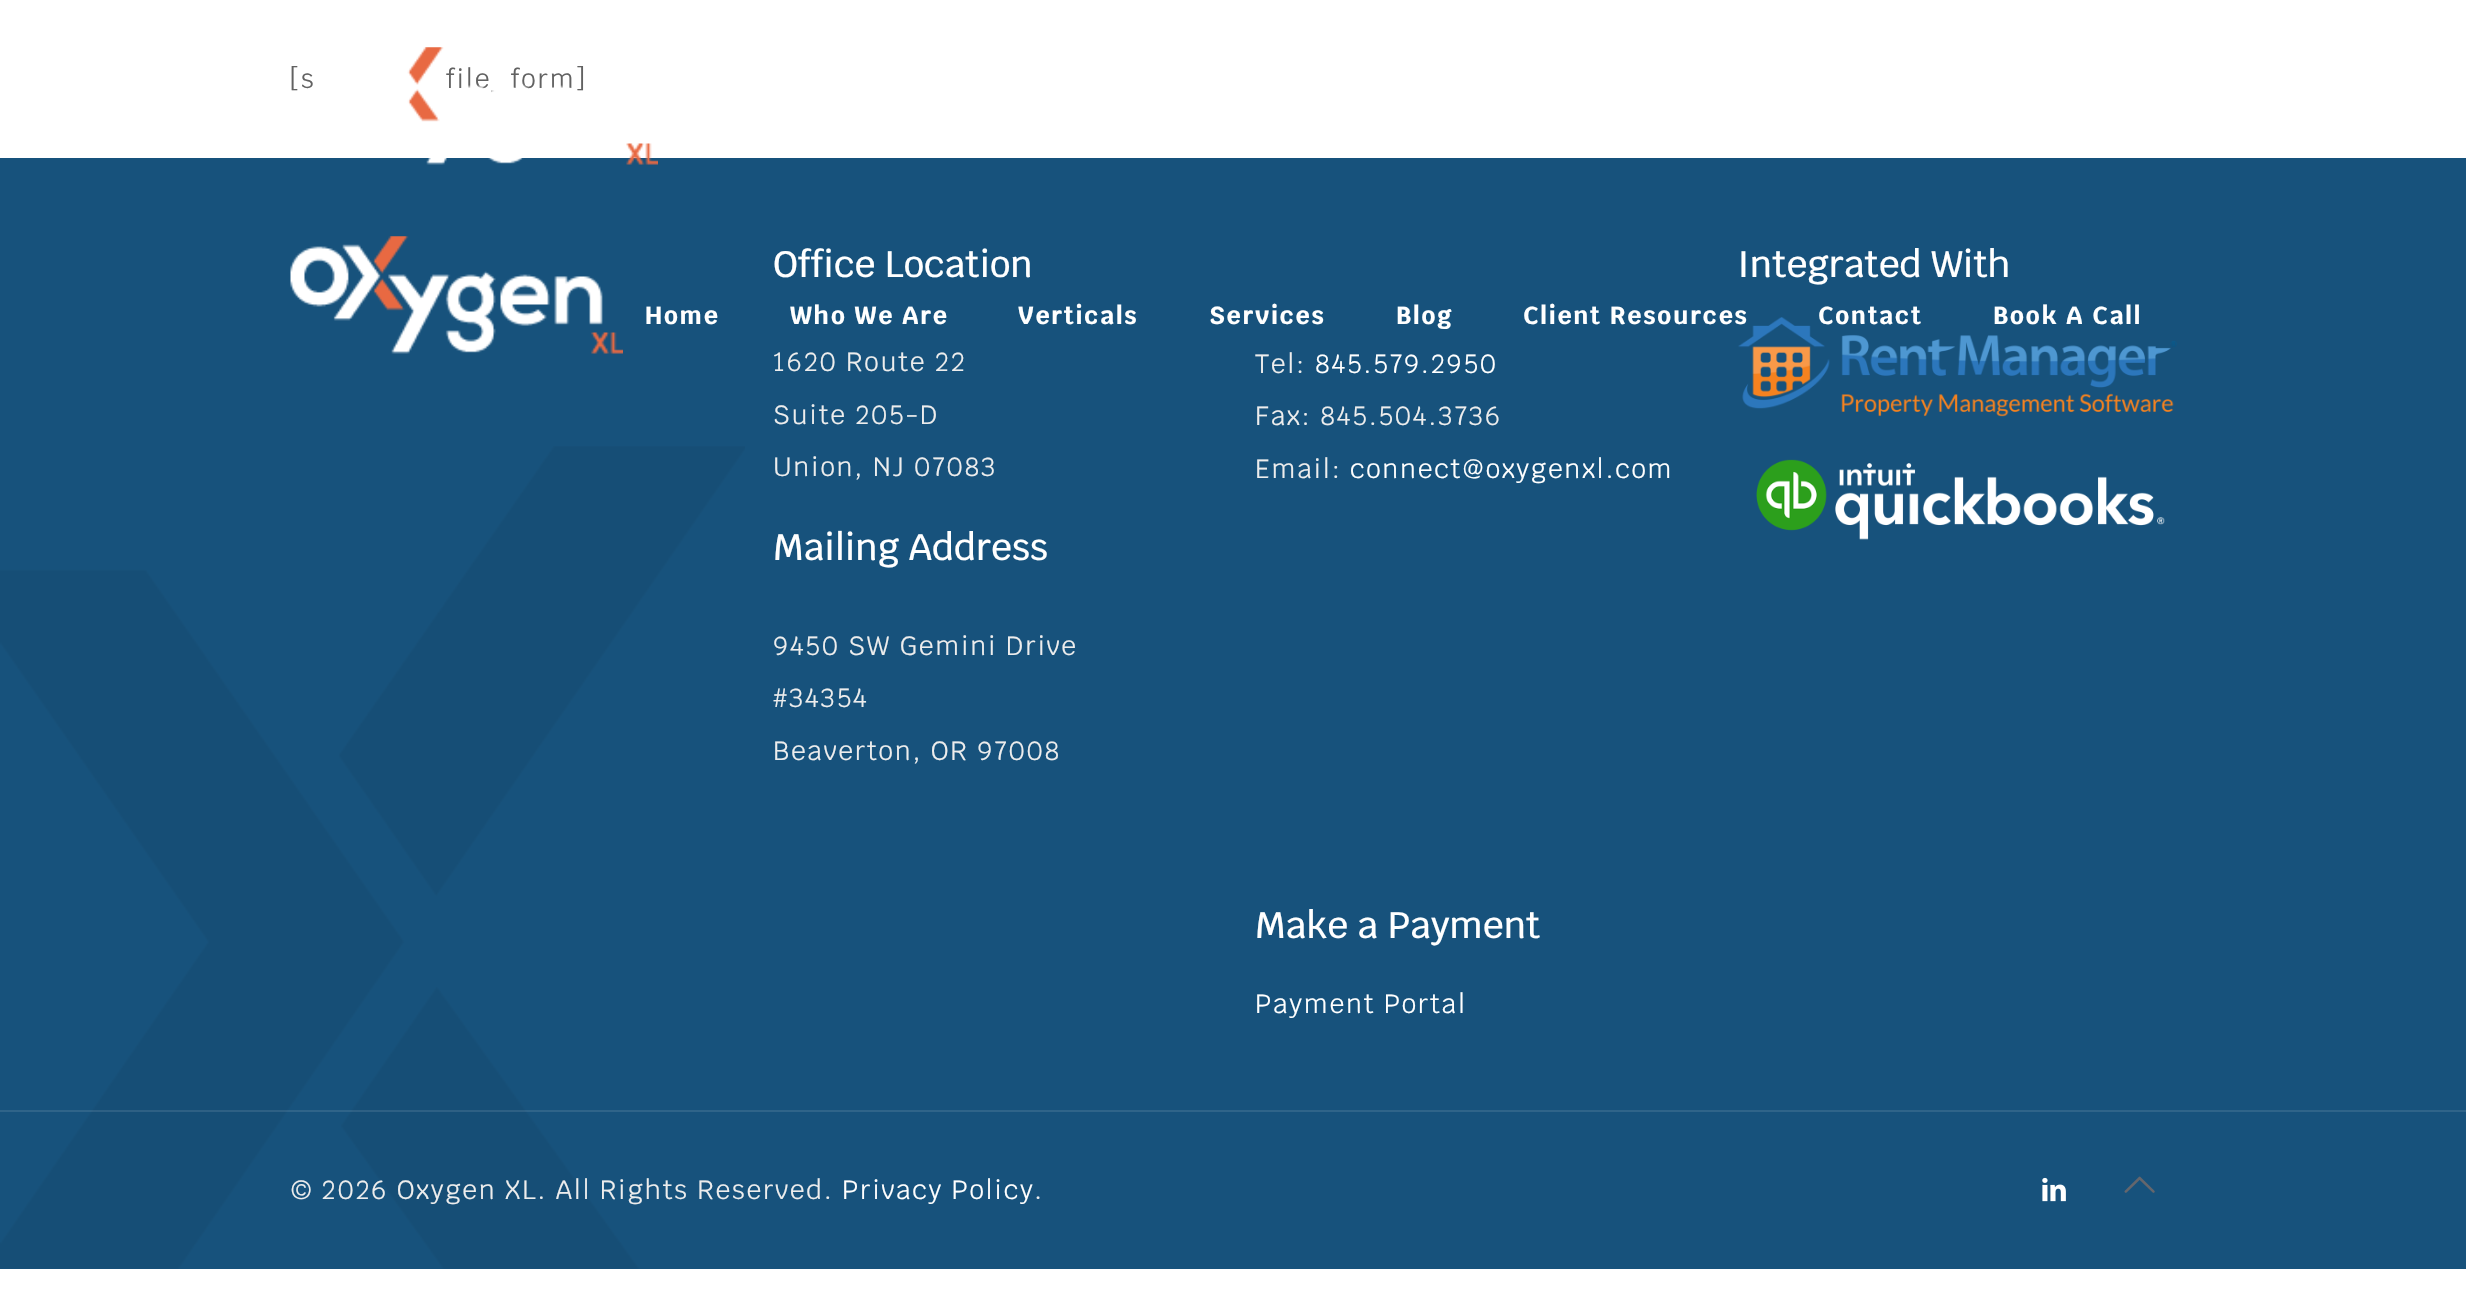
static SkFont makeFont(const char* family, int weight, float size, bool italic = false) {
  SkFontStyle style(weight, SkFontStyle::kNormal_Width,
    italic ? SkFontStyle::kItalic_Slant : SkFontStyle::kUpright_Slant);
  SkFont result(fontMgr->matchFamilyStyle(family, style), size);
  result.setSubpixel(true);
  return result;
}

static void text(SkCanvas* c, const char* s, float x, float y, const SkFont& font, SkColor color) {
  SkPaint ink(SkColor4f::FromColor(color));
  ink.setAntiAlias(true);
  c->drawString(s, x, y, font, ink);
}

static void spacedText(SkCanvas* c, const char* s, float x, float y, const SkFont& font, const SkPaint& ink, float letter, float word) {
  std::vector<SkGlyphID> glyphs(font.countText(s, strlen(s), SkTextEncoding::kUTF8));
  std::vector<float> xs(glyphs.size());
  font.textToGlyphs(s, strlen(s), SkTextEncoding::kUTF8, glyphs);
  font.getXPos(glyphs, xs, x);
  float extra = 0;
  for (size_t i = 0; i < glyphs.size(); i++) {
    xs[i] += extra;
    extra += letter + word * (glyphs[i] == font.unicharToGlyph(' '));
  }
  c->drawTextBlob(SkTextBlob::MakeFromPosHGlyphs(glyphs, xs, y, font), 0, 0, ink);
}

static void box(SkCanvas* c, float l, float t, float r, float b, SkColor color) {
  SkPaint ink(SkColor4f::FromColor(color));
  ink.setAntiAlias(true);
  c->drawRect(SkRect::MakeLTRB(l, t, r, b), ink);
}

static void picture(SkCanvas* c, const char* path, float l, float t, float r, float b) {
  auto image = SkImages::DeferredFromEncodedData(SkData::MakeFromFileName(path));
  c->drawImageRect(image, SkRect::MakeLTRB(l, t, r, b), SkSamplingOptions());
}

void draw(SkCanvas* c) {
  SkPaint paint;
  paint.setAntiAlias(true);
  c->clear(0xffffffff);
  SkFont face1 = makeFont("Krub", 400, 26.25f);
  paint.setColor(0xff626262);
  spacedText(c, "[s", 289, 88, face1, paint, 1.75f, 0);
  spacedText(c, "file_form]", 446, 88, face1, paint, 1.75f, 0);
  box(c, 0, 158, 2466, 1269, 0xff17527c);
  picture(c, "img_01.png", 0, 446, 745, 1269);
  picture(c, "img_02.png", 290, 236, 623, 354);
  SkFont face2 = makeFont("Krub", 500, 36.75f);
  text(c, "Office Location", 773, 277, face2, 0xffffffff);
  paint.setColor(0xffededed);
  spacedText(c, "1620 Route 22", 773, 371, face1, paint, 1.75f, 0);
  spacedText(c, "Suite 205-D", 773, 424, face1, paint, 1.75f, 0);
  spacedText(c, "Union, NJ 07083", 773, 476, face1, paint, 1.75f, 0);
  text(c, "Mailing Address", 773, 560, face2, 0xffffffff);
  spacedText(c, "9450 SW Gemini Drive", 773, 655, face1, paint, 1.75f, 0);
  spacedText(c, "#34354", 773, 707, face1, paint, 1.75f, 0);
  spacedText(c, "Beaverton, OR 97008", 773, 760, face1, paint, 1.75f, 0);
  spacedText(c, "Tel:", 1255, 373, face1, paint, 1.75f, 0);
  paint.setColor(0xffffffff);
  spacedText(c, "845.579.2950", 1315, 373, face1, paint, 1.75f, 0);
  paint.setColor(0xffededed);
  spacedText(c, "Fax: 845.504.3736", 1255, 425, face1, paint, 1.75f, 0);
  spacedText(c, "Email:", 1255, 478, face1, paint, 1.75f, 0);
  paint.setColor(0xffffffff);
  spacedText(c, "connect@oxygenxl.com", 1350, 478, face1, paint, 1.75f, 0);
  text(c, "Make a Payment", 1255, 938, face2, 0xffffffff);
  spacedText(c, "Payment Portal", 1255, 1013, face1, paint, 1.75f, 0);
  text(c, "Integrated With", 1737, 277, face2, 0xffffffff);
  picture(c, "img_03.png", 1738, 317, 2177, 417);
  picture(c, "img_04.png", 1756, 459, 2165, 540);
  box(c, 0, 1110, 2466, 1112, 0x1affffff);
  paint.setColor(0xffededed);
  spacedText(c, "© 2026 Oxygen XL. All Rights Reserved.", 291, 1199, face1, paint, 1.75f, 0);
  paint.setColor(0xffffffff);
  spacedText(c, "Privacy Policy", 842, 1199, face1, paint, 1.75f, 0);
  paint.setColor(0xffededed);
  spacedText(c, ".", 1034, 1199, face1, paint, 1.75f, 0);
  picture(c, "img_05.png", 2042, 1177, 2066, 1202);
  picture(c, "img_06.png", 2124, 1176, 2155, 1193);
  picture(c, "img_07.png", 325, 47, 658, 165);
  SkFont face3 = makeFont("Krub", 700, 24.5f);
  paint.setColor(0xffffffff);
  spacedText(c, "Home", 645, 324, face3, paint, 1.75f, 0);
  spacedText(c, "Who We Are", 790, 324, face3, paint, 1.75f, 0);
  spacedText(c, "Verticals", 1018, 324, face3, paint, 1.75f, 0);
  spacedText(c, "Services", 1209, 324, face3, paint, 1.75f, 0);
  spacedText(c, "Blog", 1396, 324, face3, paint, 1.75f, 0);
  spacedText(c, "Client Resources", 1523, 324, face3, paint, 1.75f, 0);
  spacedText(c, "Contact", 1818, 324, face3, paint, 1.75f, 0);
  spacedText(c, "Book A Call", 1993, 324, face3, paint, 1.75f, 0);
}
